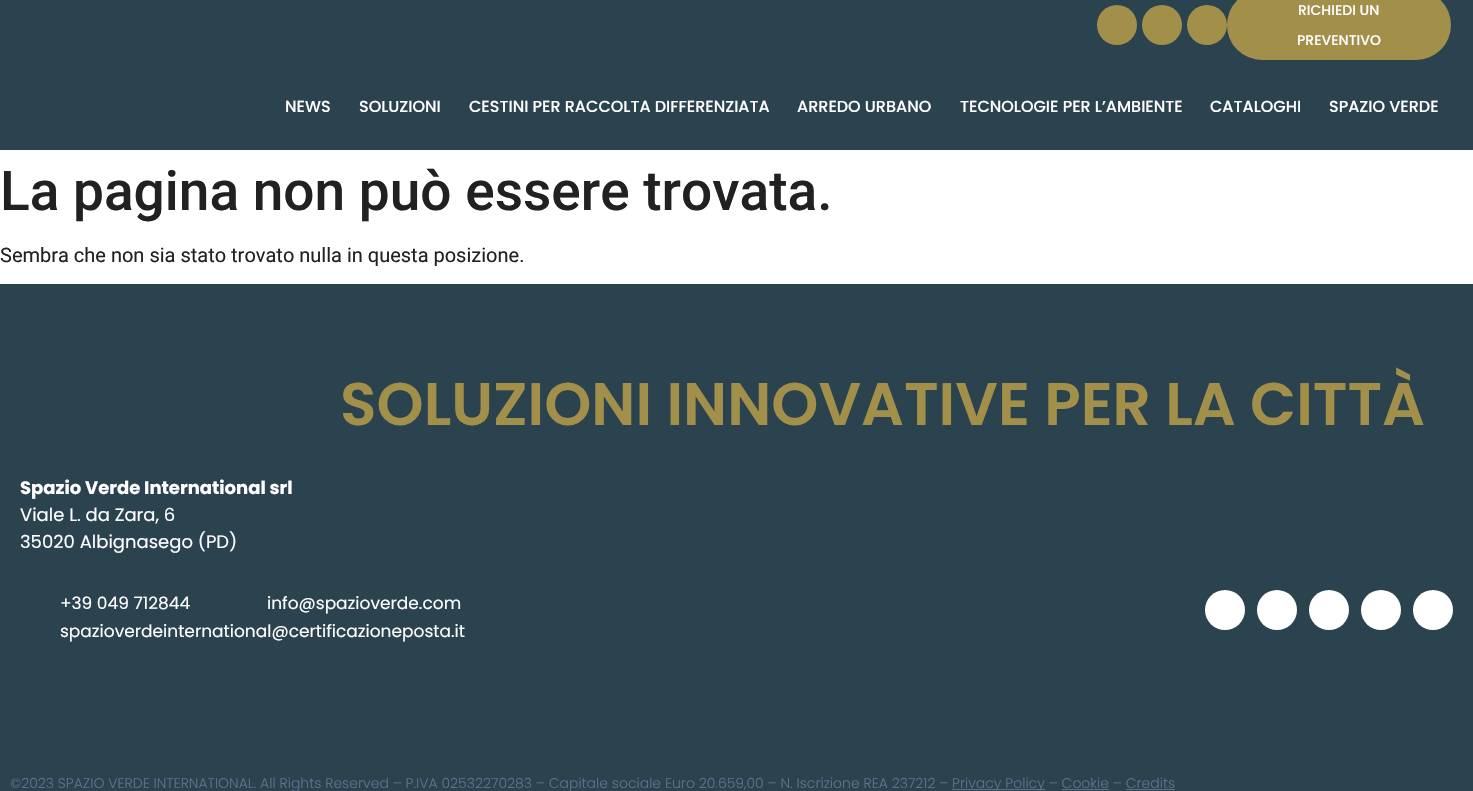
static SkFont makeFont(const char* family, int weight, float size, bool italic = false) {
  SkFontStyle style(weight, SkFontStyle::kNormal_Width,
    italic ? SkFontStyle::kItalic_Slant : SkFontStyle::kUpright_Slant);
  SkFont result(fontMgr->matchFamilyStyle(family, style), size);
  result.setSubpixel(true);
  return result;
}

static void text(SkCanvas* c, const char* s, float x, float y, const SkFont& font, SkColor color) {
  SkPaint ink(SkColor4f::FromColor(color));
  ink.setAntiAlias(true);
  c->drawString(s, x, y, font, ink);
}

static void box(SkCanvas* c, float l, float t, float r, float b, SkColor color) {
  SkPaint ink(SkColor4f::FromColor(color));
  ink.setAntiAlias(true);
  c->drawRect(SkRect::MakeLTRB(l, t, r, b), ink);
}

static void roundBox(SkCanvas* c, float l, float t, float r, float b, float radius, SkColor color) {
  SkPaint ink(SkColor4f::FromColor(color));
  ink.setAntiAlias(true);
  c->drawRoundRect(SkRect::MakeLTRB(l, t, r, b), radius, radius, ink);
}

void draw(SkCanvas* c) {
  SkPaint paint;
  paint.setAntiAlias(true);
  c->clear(0xffffffff);
  box(c, 0, 0, 1473, 150, 0xff2b424f);
  paint.setColor(0xffa28f4a);
  c->drawCircle(1117, 25, 20, paint);
  c->drawCircle(1162, 25, 20, paint);
  c->drawCircle(1207, 25, 20, paint);
  roundBox(c, 1227, -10, 1451, 60, 35, 0xffa28f4a);
  SkFont face1 = makeFont("Poppins", 500, 14);
  text(c, "RICHIEDI UN", 1298, 15, face1, 0xffffffff);
  text(c, "PREVENTIVO", 1297, 45, face1, 0xffffffff);
  SkFont face2 = makeFont("Poppins", 500, 16);
  text(c, "NEWS", 285, 112, face2, 0xffffffff);
  text(c, "SOLUZIONI", 359, 112, face2, 0xffffffff);
  text(c, "CESTINI PER RACCOLTA DIFFERENZIATA", 469, 112, face2, 0xffffffff);
  text(c, "ARREDO URBANO", 797, 112, face2, 0xffffffff);
  text(c, "TECNOLOGIE PER L’AMBIENTE", 960, 112, face2, 0xffffffff);
  text(c, "CATALOGHI", 1210, 112, face2, 0xffffffff);
  text(c, "SPAZIO VERDE", 1329, 112, face2, 0xffffffff);
  SkFont face3 = makeFont("Roboto", 500, 55);
  text(c, "La pagina non può essere trovata.", 0, 210, face3, 0xff212121);
  SkFont face4 = makeFont("Roboto", 400, 20);
  text(c, "Sembra che non sia stato trovato nulla in questa posizione.", 0, 262, face4, 0xff212121);
  box(c, 0, 284, 1473, 791, 0xff2b424f);
  SkFont face5 = makeFont("Poppins", 600, 60);
  text(c, "SOLUZIONI INNOVATIVE PER LA CITTÀ", 340, 425, face5, 0xffa28f4a);
  SkFont face6 = makeFont("Poppins", 700, 18);
  text(c, "Spazio Verde International srl", 20, 494, face6, 0xffffffff);
  SkFont face7 = makeFont("Poppins", 400, 18);
  text(c, "Viale L. da Zara, 6", 20, 521, face7, 0xffffffff);
  text(c, "35020 Albignasego (PD)", 20, 548, face7, 0xffffffff);
  SkFont face8 = makeFont("Poppins", 400, 17);
  text(c, "+39 049 712844", 60, 609, face8, 0xffffffff);
  text(c, "info@spazioverde.com", 267, 609, face8, 0xffffffff);
  text(c, "spazioverdeinternational@certificazioneposta.it", 60, 637, face8, 0xffffffff);
  paint.setColor(0xffffffff);
  c->drawCircle(1225, 610, 20, paint);
  c->drawCircle(1277, 610, 20, paint);
  c->drawCircle(1329, 610, 20, paint);
  c->drawCircle(1381, 610, 20, paint);
  c->drawCircle(1433, 610, 20, paint);
  SkFont face9 = makeFont("Poppins", 300, 14);
  text(c, "©2023 SPAZIO VERDE INTERNATIONAL. All Rights Reserved – P.IVA 02532270283 – Capitale sociale Euro 20.659,00 – N. Iscrizione REA 237212 –", 10, 788, face9, 0xff5c728c);
  box(c, 952, 789, 1045, 790, 0xff5c728c);
  text(c, "Privacy Policy – Cookie – Credits", 952, 788, face9, 0xff5c728c);
  box(c, 1062, 789, 1109, 790, 0xff5c728c);
  box(c, 1126, 789, 1175, 790, 0xff5c728c);
}
